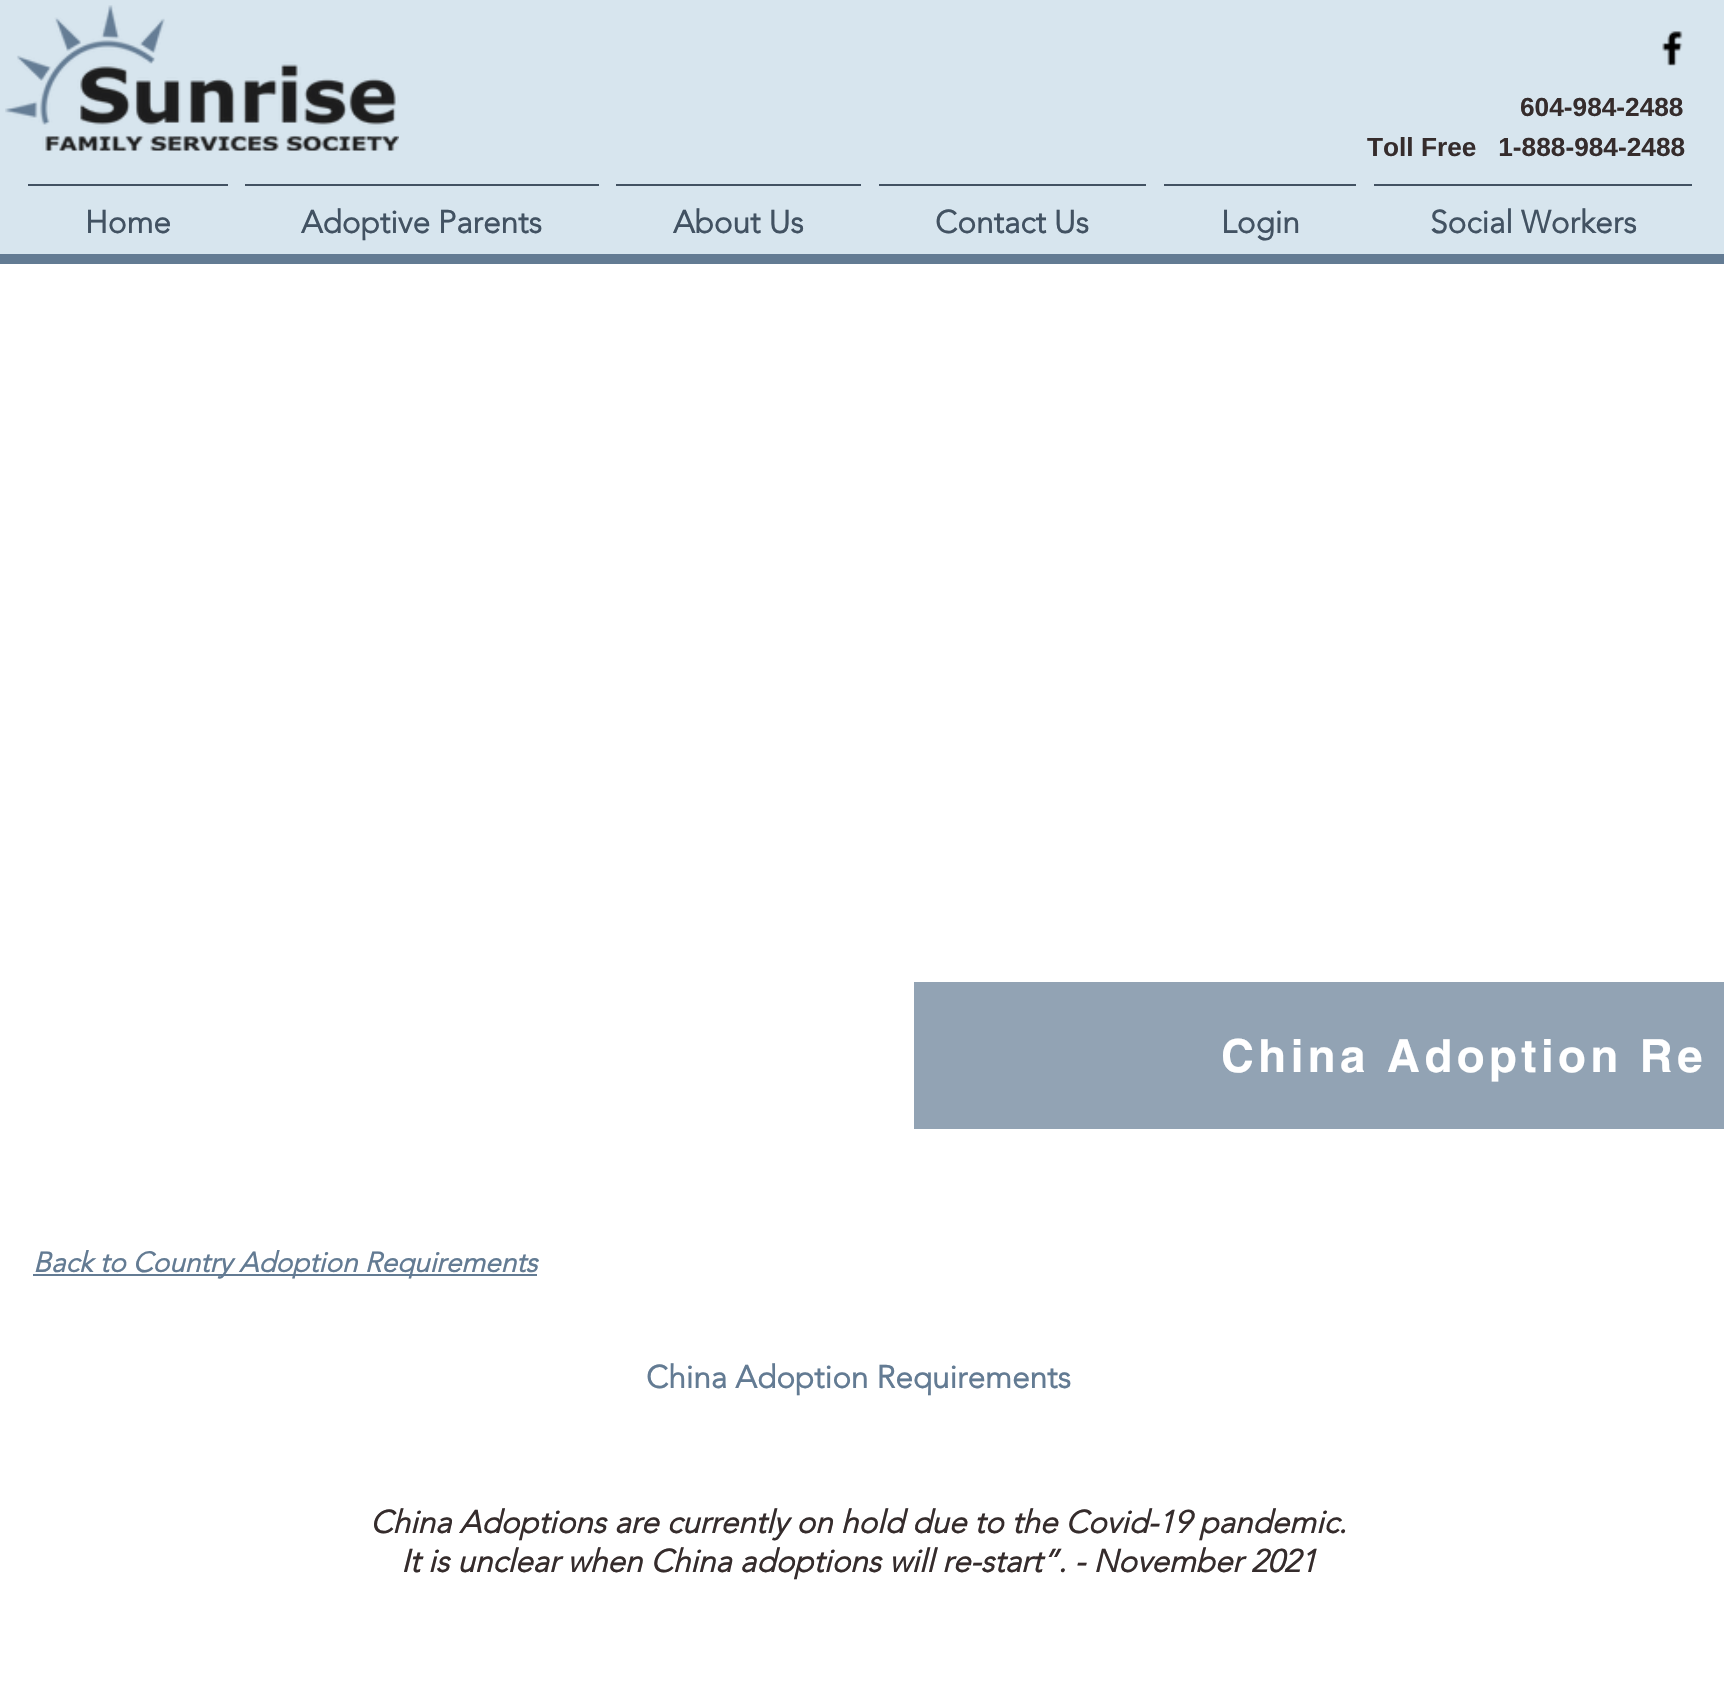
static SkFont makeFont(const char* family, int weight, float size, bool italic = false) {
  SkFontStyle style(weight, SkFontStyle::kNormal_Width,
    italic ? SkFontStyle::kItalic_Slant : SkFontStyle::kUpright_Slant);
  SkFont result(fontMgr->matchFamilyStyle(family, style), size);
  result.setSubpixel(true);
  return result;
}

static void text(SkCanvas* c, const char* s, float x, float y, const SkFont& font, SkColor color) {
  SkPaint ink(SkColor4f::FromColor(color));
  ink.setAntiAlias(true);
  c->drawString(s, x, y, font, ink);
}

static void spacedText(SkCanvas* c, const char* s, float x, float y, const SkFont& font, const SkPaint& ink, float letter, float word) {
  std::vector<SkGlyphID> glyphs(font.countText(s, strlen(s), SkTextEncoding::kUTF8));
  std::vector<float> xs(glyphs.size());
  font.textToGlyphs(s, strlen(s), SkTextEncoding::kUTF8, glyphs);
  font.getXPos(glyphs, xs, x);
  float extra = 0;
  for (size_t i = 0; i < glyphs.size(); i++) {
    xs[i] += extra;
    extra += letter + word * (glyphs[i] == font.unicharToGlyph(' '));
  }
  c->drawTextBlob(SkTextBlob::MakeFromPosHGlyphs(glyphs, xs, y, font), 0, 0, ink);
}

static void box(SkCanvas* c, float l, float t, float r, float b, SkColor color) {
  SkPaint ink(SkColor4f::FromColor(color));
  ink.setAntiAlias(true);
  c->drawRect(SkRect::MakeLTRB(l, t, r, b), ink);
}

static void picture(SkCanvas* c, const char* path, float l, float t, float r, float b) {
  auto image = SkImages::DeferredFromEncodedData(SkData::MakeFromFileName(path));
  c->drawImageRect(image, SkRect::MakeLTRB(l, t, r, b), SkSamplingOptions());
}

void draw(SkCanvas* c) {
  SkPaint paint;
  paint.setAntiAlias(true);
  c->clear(0xffffffff);
  box(c, 0, 0, 1724, 254, 0xffd7e5ee);
  picture(c, "img_01.png", 5, 5, 399, 151);
  picture(c, "img_02.png", 1662, 31, 1683, 66);
  SkFont face1 = makeFont("Liberation Sans", 700, 26.25f);
  text(c, "604-984-2488", 1520, 116, face1, 0xff352c2c);
  text(c, "Toll Free   1-888-984-2488", 1367, 156, face1, 0xff352c2c);
  box(c, 28, 184, 228, 186, 0xff425262);
  SkFont face2 = makeFont("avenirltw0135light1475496", 700, 31.5f);
  text(c, "Home", 85, 233, face2, 0xff425262);
  box(c, 245, 184, 599, 186, 0xff425262);
  text(c, "Adoptive Parents", 301, 233, face2, 0xff425262);
  box(c, 616, 184, 861, 186, 0xff425262);
  text(c, "About Us", 673, 233, face2, 0xff425262);
  box(c, 879, 184, 1146, 186, 0xff425262);
  text(c, "Contact Us", 935, 233, face2, 0xff425262);
  box(c, 1164, 184, 1356, 186, 0xff425262);
  text(c, "Login", 1221, 233, face2, 0xff425262);
  box(c, 1374, 184, 1692, 186, 0xff425262);
  text(c, "Social Workers", 1430, 233, face2, 0xff425262);
  box(c, 0, 254, 1724, 264, 0xff637b93);
  box(c, 914, 982, 1724, 1129, 0xff92a3b4);
  SkFont face3 = makeFont("helvetica", 700, 45.5f);
  paint.setColor(0xffffffff);
  spacedText(c, "China Adoption Re", 1221, 1072, face3, paint, 4.5f, 0);
  box(c, 33, 1274, 537, 1276, 0xff637b93);
  SkFont face4 = makeFont("avenirltw0135light1475496", 700, 28, true);
  text(c, "Back to Country Adoption Requirements", 33, 1272, face4, 0xff637b93);
  text(c, "China Adoption Requirements", 646, 1388, face2, 0xff637b93);
  SkFont face5 = makeFont("avenirltw0135light1475496", 700, 31.5f, true);
  text(c, "China Adoptions are currently on hold due to the Covid-19 pandemic.", 370, 1533, face5, 0xff352c2c);
  text(c, "It is unclear when China adoptions will re-start”. - November 2021", 401, 1572, face5, 0xff352c2c);
}
